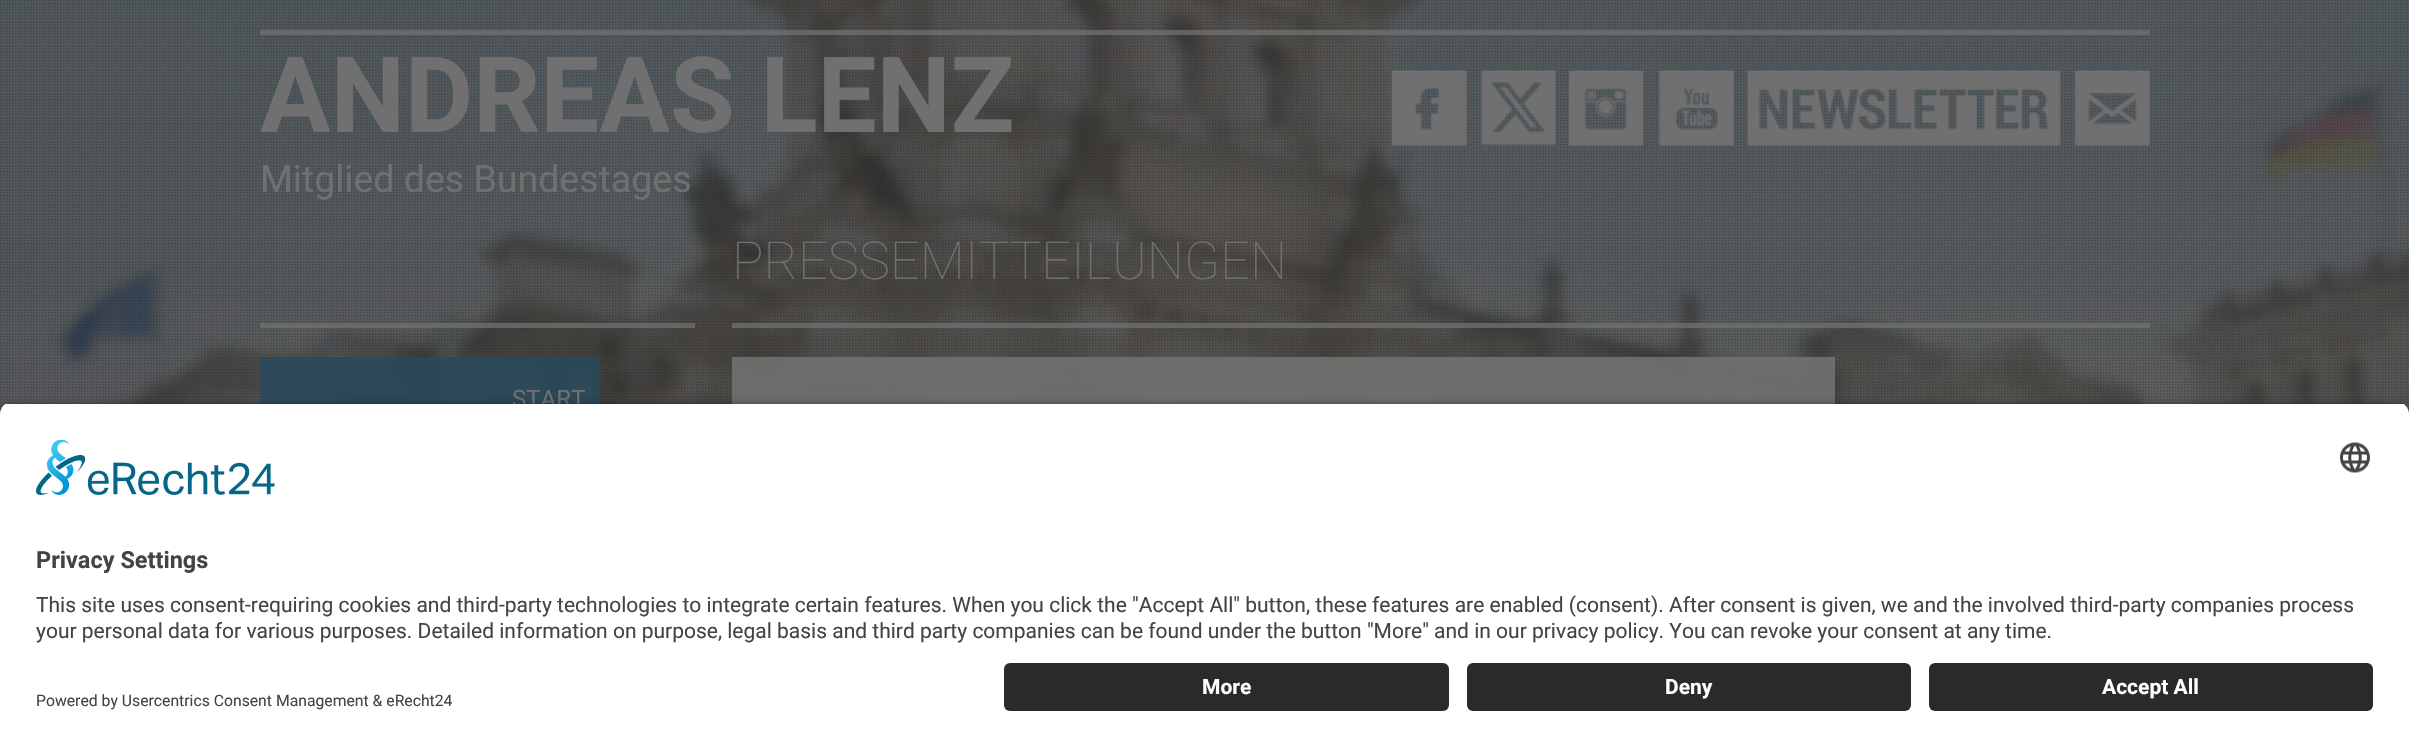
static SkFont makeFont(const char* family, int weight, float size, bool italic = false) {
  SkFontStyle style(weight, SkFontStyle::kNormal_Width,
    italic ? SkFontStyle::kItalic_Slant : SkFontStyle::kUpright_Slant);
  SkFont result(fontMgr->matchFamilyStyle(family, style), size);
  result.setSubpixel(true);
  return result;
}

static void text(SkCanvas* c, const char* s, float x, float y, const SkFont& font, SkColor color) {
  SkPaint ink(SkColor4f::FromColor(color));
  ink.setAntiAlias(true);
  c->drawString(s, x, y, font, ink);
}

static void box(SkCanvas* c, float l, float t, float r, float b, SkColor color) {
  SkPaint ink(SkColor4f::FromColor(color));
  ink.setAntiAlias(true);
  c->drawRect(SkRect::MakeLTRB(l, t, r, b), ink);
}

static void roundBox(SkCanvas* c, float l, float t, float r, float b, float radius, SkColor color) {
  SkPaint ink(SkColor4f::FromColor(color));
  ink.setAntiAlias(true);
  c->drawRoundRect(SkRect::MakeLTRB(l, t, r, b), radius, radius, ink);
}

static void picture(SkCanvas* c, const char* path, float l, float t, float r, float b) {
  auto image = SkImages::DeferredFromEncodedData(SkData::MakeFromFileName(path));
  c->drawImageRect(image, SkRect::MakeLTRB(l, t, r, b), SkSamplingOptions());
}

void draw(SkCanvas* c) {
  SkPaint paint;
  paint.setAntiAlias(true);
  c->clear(0xffffffff);
  picture(c, "img_01.png", 0, 0, 2409, 414);
  box(c, 260, 30, 2150, 35, 0xbf707070);
  SkFont face1 = makeFont("Roboto", 700, 105);
  text(c, "ANDREAS LENZ", 260, 132, face1, 0xff707070);
  SkFont face2 = makeFont("Roboto", 400, 37.5f);
  text(c, "Mitglied des Bundestages", 260, 192, face2, 0xff707070);
  picture(c, "img_02.png", 1392, 70, 1467, 146);
  picture(c, "img_03.png", 1480, 70, 1556, 146);
  picture(c, "img_04.png", 1569, 70, 1644, 146);
  picture(c, "img_05.png", 1659, 70, 1734, 146);
  picture(c, "img_06.png", 1747, 70, 2061, 146);
  picture(c, "img_07.png", 2074, 70, 2150, 146);
  box(c, 732, 323, 2150, 328, 0xbf707070);
  SkFont face3 = makeFont("Roboto", 100, 52.5f);
  text(c, "PRESSEMITTEILUNGEN", 732, 279, face3, 0xff707070);
  box(c, 260, 323, 695, 328, 0xbf707070);
  box(c, 260, 357, 600, 404, 0xbf244a60);
  SkFont face4 = makeFont("Roboto", 400, 24);
  text(c, "START", 512, 407, face4, 0xff707070);
  box(c, 732, 357, 1835, 404, 0xe6707070);
  paint.setColor(0xcc000000);
  paint.setMaskFilter(SkMaskFilter::MakeBlur(kNormal_SkBlurStyle, 5));
  c->drawRoundRect(SkRect::MakeLTRB(0, 407, 2409, 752), 12, 12, paint);
  paint.setMaskFilter(nullptr);
  c->save();
  c->clipPath(SkPathBuilder().moveTo(12, 402).lineTo(2397, 402).cubicTo(2403.5f, 402, 2409, 407.5f, 2409, 414).lineTo(2409, 651).lineTo(0, 651).lineTo(0, 414).cubicTo(0, 407.5f, 5.5f, 402, 12, 402).close().detach(), true);
  box(c, 0, 404, 2409, 651, 0xffffffff);
  c->restore();
  picture(c, "img_08.png", 36, 440, 275, 495);
  picture(c, "img_09.png", 2340, 442, 2370, 473);
  SkFont face5 = makeFont("Roboto", 700, 23.5f);
  text(c, "Privacy Settings", 36, 568, face5, 0xff444444);
  SkFont face6 = makeFont("Roboto", 400, 21);
  text(c, "This site uses consent-requiring cookies and third-party technologies to integrate certain features. When you click the \"Accept All\" button, these features are enabled (consent). After consent is given, we and the involved third-party companies process", 36, 612, face6, 0xff444444);
  text(c, "your personal data for various purposes. Detailed information on purpose, legal basis and third party companies can be found under the button \"More\" and in our privacy policy. You can revoke your consent at any time.", 36, 638, face6, 0xff444444);
  box(c, 0, 651, 2409, 746, 0xffffffff);
  roundBox(c, 1004, 663, 1449, 711, 6, 0xff292a2b);
  SkFont face7 = makeFont("Roboto", 700, 21);
  text(c, "More", 1202, 694, face7, 0xffffffff);
  roundBox(c, 1467, 663, 1911, 711, 6, 0xff292a2b);
  text(c, "Deny", 1665, 694, face7, 0xffffffff);
  roundBox(c, 1929, 663, 2373, 711, 6, 0xff292a2b);
  text(c, "Accept All", 2102, 694, face7, 0xffffffff);
  SkFont face8 = makeFont("Roboto", 400, 15.75f);
  text(c, "Powered by Usercentrics Consent Management & eRecht24", 36, 706, face8, 0xff444444);
}
